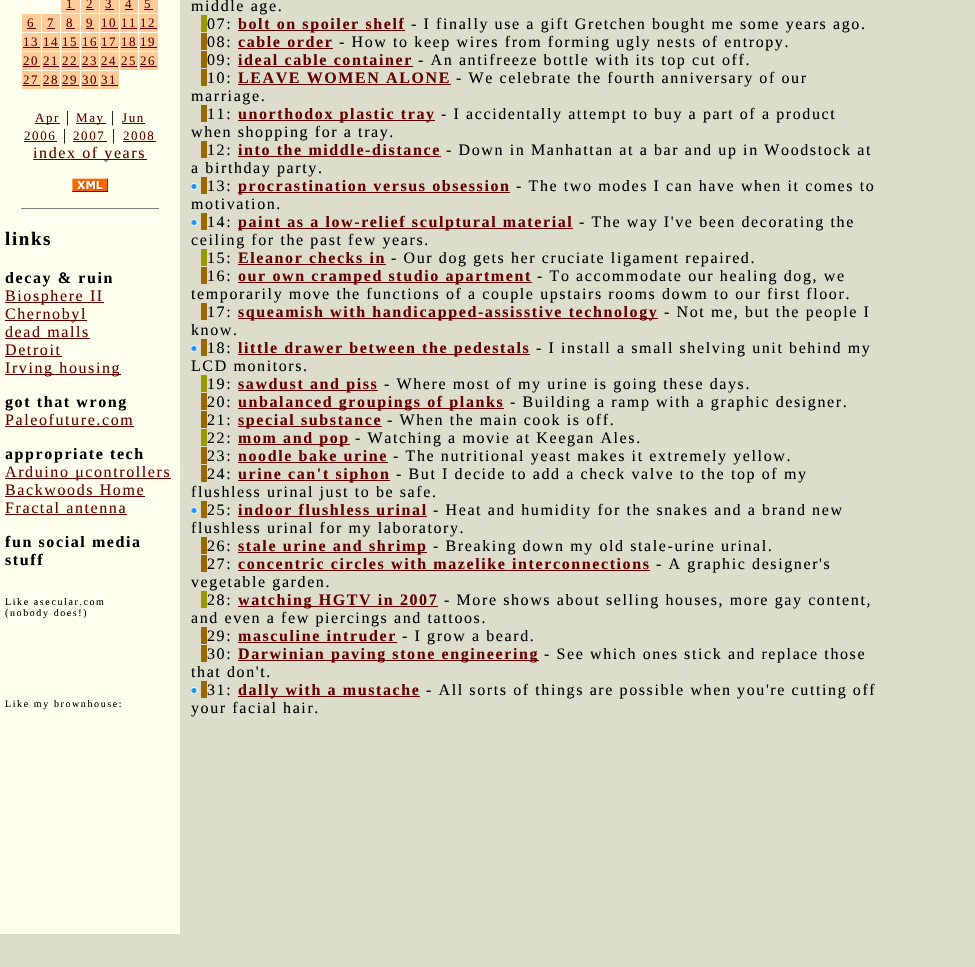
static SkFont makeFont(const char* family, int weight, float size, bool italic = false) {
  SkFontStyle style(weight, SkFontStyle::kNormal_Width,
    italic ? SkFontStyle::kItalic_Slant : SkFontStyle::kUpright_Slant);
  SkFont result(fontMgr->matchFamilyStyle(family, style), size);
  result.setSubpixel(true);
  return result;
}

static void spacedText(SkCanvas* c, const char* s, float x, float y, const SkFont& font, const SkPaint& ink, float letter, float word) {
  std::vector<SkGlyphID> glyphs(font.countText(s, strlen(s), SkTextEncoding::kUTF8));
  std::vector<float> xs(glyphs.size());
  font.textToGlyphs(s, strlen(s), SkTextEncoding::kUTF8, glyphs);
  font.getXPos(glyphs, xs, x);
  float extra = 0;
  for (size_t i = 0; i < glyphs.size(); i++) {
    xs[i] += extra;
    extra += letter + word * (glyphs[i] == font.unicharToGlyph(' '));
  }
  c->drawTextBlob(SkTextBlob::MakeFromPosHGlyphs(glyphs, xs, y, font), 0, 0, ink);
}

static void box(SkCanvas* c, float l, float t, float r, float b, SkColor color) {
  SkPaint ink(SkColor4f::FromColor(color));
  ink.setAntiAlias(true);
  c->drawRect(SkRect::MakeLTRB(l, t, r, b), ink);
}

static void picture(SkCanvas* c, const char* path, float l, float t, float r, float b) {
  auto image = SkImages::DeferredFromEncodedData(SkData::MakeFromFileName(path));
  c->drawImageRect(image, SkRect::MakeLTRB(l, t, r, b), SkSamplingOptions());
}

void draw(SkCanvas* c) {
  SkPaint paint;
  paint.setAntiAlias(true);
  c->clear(0xffddddcc);
  box(c, 0, 0, 180, 934, 0xffffffee);
  box(c, 61, 0, 80, 13, 0xffffcc99);
  SkFont face1 = makeFont("Liberation Serif", 400, 13);
  paint.setColor(0xff660000);
  spacedText(c, "1", 66, 8, face1, paint, 1.6f, 0);
  box(c, 66, 9, 75, 10, 0xff660000);
  box(c, 81, 0, 99, 13, 0xffffcc99);
  spacedText(c, "2", 86, 8, face1, paint, 1.6f, 0);
  box(c, 86, 9, 94, 10, 0xff660000);
  box(c, 100, 0, 119, 13, 0xffffcc99);
  spacedText(c, "3", 105, 8, face1, paint, 1.6f, 0);
  box(c, 105, 9, 114, 10, 0xff660000);
  box(c, 120, 0, 138, 13, 0xffffcc99);
  spacedText(c, "4", 125, 8, face1, paint, 1.6f, 0);
  box(c, 125, 9, 133, 10, 0xff660000);
  box(c, 139, 0, 158, 13, 0xffffcc99);
  spacedText(c, "5", 144, 8, face1, paint, 1.6f, 0);
  box(c, 144, 9, 153, 10, 0xff660000);
  box(c, 22, 14, 41, 32, 0xffffcc99);
  spacedText(c, "6", 27, 27, face1, paint, 1.6f, 0);
  box(c, 27, 28, 36, 29, 0xff660000);
  box(c, 42, 14, 60, 32, 0xffffcc99);
  spacedText(c, "7", 47, 27, face1, paint, 1.6f, 0);
  box(c, 47, 28, 55, 29, 0xff660000);
  box(c, 61, 14, 80, 32, 0xffffcc99);
  spacedText(c, "8", 66, 27, face1, paint, 1.6f, 0);
  box(c, 66, 28, 75, 29, 0xff660000);
  box(c, 81, 14, 99, 32, 0xffffcc99);
  spacedText(c, "9", 86, 27, face1, paint, 1.6f, 0);
  box(c, 86, 28, 94, 29, 0xff660000);
  box(c, 100, 14, 119, 32, 0xffffcc99);
  spacedText(c, "10", 101, 27, face1, paint, 1.6f, 0);
  box(c, 101, 28, 118, 29, 0xff660000);
  box(c, 120, 14, 138, 32, 0xffffcc99);
  spacedText(c, "11", 121, 27, face1, paint, 1.6f, 0);
  box(c, 121, 28, 137, 29, 0xff660000);
  box(c, 139, 14, 158, 32, 0xffffcc99);
  spacedText(c, "12", 140, 27, face1, paint, 1.6f, 0);
  box(c, 140, 28, 157, 29, 0xff660000);
  box(c, 22, 33, 41, 51, 0xffffcc99);
  spacedText(c, "13", 23, 46, face1, paint, 1.6f, 0);
  box(c, 23, 47, 40, 48, 0xff660000);
  box(c, 42, 33, 60, 51, 0xffffcc99);
  spacedText(c, "14", 43, 46, face1, paint, 1.6f, 0);
  box(c, 43, 47, 59, 48, 0xff660000);
  box(c, 61, 33, 80, 51, 0xffffcc99);
  spacedText(c, "15", 62, 46, face1, paint, 1.6f, 0);
  box(c, 62, 47, 79, 48, 0xff660000);
  box(c, 81, 33, 99, 51, 0xffffcc99);
  spacedText(c, "16", 82, 46, face1, paint, 1.6f, 0);
  box(c, 82, 47, 98, 48, 0xff660000);
  box(c, 100, 33, 119, 51, 0xffffcc99);
  spacedText(c, "17", 101, 46, face1, paint, 1.6f, 0);
  box(c, 101, 47, 118, 48, 0xff660000);
  box(c, 120, 33, 138, 51, 0xffffcc99);
  spacedText(c, "18", 121, 46, face1, paint, 1.6f, 0);
  box(c, 121, 47, 137, 48, 0xff660000);
  box(c, 139, 33, 158, 51, 0xffffcc99);
  spacedText(c, "19", 140, 46, face1, paint, 1.6f, 0);
  box(c, 140, 47, 157, 48, 0xff660000);
  box(c, 22, 52, 41, 70, 0xffffcc99);
  spacedText(c, "20", 23, 65, face1, paint, 1.6f, 0);
  box(c, 23, 66, 40, 67, 0xff660000);
  box(c, 42, 52, 60, 70, 0xffffcc99);
  spacedText(c, "21", 43, 65, face1, paint, 1.6f, 0);
  box(c, 43, 66, 59, 67, 0xff660000);
  box(c, 61, 52, 80, 70, 0xffffcc99);
  spacedText(c, "22", 62, 65, face1, paint, 1.6f, 0);
  box(c, 62, 66, 79, 67, 0xff660000);
  box(c, 81, 52, 99, 70, 0xffffcc99);
  spacedText(c, "23", 82, 65, face1, paint, 1.6f, 0);
  box(c, 82, 66, 98, 67, 0xff660000);
  box(c, 100, 52, 119, 70, 0xffffcc99);
  spacedText(c, "24", 101, 65, face1, paint, 1.6f, 0);
  box(c, 101, 66, 118, 67, 0xff660000);
  box(c, 120, 52, 138, 70, 0xffffcc99);
  spacedText(c, "25", 121, 65, face1, paint, 1.6f, 0);
  box(c, 121, 66, 137, 67, 0xff660000);
  box(c, 139, 52, 158, 70, 0xffffcc99);
  spacedText(c, "26", 140, 65, face1, paint, 1.6f, 0);
  box(c, 140, 66, 157, 67, 0xff660000);
  box(c, 22, 71, 41, 89, 0xffffcc99);
  spacedText(c, "27", 23, 84, face1, paint, 1.6f, 0);
  box(c, 23, 85, 40, 86, 0xff660000);
  box(c, 42, 71, 60, 89, 0xffffcc99);
  spacedText(c, "28", 43, 84, face1, paint, 1.6f, 0);
  box(c, 43, 85, 59, 86, 0xff660000);
  box(c, 61, 71, 80, 89, 0xffffcc99);
  spacedText(c, "29", 62, 84, face1, paint, 1.6f, 0);
  box(c, 62, 85, 79, 86, 0xff660000);
  box(c, 81, 71, 99, 89, 0xffffcc99);
  spacedText(c, "30", 82, 84, face1, paint, 1.6f, 0);
  box(c, 82, 85, 98, 86, 0xff660000);
  box(c, 100, 71, 119, 89, 0xffffcc99);
  spacedText(c, "31", 101, 84, face1, paint, 1.6f, 0);
  box(c, 101, 85, 118, 86, 0xff660000);
  box(c, 35, 123, 60, 124, 0xff660000);
  spacedText(c, "Apr", 35, 122, face1, paint, 1.6f, 0);
  SkFont face2 = makeFont("Liberation Serif", 400, 16);
  paint.setColor(0xff000000);
  spacedText(c, "|", 66, 122, face2, paint, 1.6f, 0);
  box(c, 76, 123, 106, 124, 0xff660000);
  paint.setColor(0xff660000);
  spacedText(c, "May", 76, 122, face1, paint, 1.6f, 0);
  paint.setColor(0xff000000);
  spacedText(c, "|", 111, 122, face2, paint, 1.6f, 0);
  paint.setColor(0xff660000);
  spacedText(c, "Jun", 122, 122, face1, paint, 1.6f, 0);
  box(c, 122, 123, 145, 124, 0xff660000);
  spacedText(c, "2006", 24, 140, face1, paint, 1.6f, 0);
  box(c, 24, 141, 57, 142, 0xff660000);
  paint.setColor(0xff000000);
  spacedText(c, "|", 63, 140, face2, paint, 1.6f, 0);
  paint.setColor(0xff660000);
  spacedText(c, "2007", 73, 140, face1, paint, 1.6f, 0);
  box(c, 73, 141, 107, 142, 0xff660000);
  paint.setColor(0xff000000);
  spacedText(c, "|", 112, 140, face2, paint, 1.6f, 0);
  paint.setColor(0xff660000);
  spacedText(c, "2008", 123, 140, face1, paint, 1.6f, 0);
  box(c, 123, 141, 156, 142, 0xff660000);
  box(c, 33, 159, 147, 160, 0xff660000);
  spacedText(c, "index of years", 33, 158, face2, paint, 1.6f, 0);
  picture(c, "img_01.png", 72, 178, 108, 192);
  box(c, 21, 208, 159, 209, 0xff808080);
  SkFont face3 = makeFont("Liberation Serif", 700, 19);
  paint.setColor(0xff000000);
  spacedText(c, "links", 5, 245, face3, paint, 1.6f, 0);
  SkFont face4 = makeFont("Liberation Serif", 700, 16);
  spacedText(c, "decay & ruin", 5, 283, face4, paint, 1.6f, 0);
  box(c, 5, 302, 104, 303, 0xff660000);
  paint.setColor(0xff660000);
  spacedText(c, "Biosphere II", 5, 301, face2, paint, 1.6f, 0);
  box(c, 5, 320, 87, 321, 0xff660000);
  spacedText(c, "Chernobyl", 5, 319, face2, paint, 1.6f, 0);
  spacedText(c, "dead malls", 5, 337, face2, paint, 1.6f, 0);
  box(c, 5, 338, 90, 339, 0xff660000);
  spacedText(c, "Detroit", 5, 355, face2, paint, 1.6f, 0);
  box(c, 5, 356, 62, 357, 0xff660000);
  box(c, 5, 374, 121, 375, 0xff660000);
  spacedText(c, "Irving housing", 5, 373, face2, paint, 1.6f, 0);
  paint.setColor(0xff000000);
  spacedText(c, "got that wrong", 5, 407, face4, paint, 1.6f, 0);
  paint.setColor(0xff660000);
  spacedText(c, "Paleofuture.com", 5, 425, face2, paint, 1.6f, 0);
  box(c, 5, 426, 134, 427, 0xff660000);
  paint.setColor(0xff000000);
  spacedText(c, "appropriate tech", 5, 459, face4, paint, 1.6f, 0);
  box(c, 5, 478, 171, 479, 0xff660000);
  paint.setColor(0xff660000);
  spacedText(c, "Arduino μcontrollers", 5, 477, face2, paint, 1.6f, 0);
  spacedText(c, "Backwoods Home", 5, 495, face2, paint, 1.6f, 0);
  box(c, 5, 496, 145, 497, 0xff660000);
  spacedText(c, "Fractal antenna", 5, 513, face2, paint, 1.6f, 0);
  box(c, 5, 514, 127, 515, 0xff660000);
  paint.setColor(0xff000000);
  spacedText(c, "fun social media", 5, 547, face4, paint, 1.6f, 0);
  spacedText(c, "stuff", 5, 565, face4, paint, 1.6f, 0);
  SkFont face5 = makeFont("Liberation Serif", 400, 10);
  spacedText(c, "Like asecular.com", 5, 605, face5, paint, 1.6f, 0);
  spacedText(c, "(nobody does!)", 5, 616, face5, paint, 1.6f, 0);
  spacedText(c, "Like my brownhouse:", 5, 707, face5, paint, 1.6f, 0);
  spacedText(c, "middle age.", 191, 11, face2, paint, 1.6f, 0);
  box(c, 201, 15, 207, 32, 0xff999900);
  spacedText(c, "07:", 207, 29, face2, paint, 1.6f, 0);
  box(c, 238, 30, 405, 31, 0xff660000);
  paint.setColor(0xff660000);
  spacedText(c, "bolt on spoiler shelf", 238, 29, face4, paint, 1.6f, 0);
  paint.setColor(0xff000000);
  spacedText(c, "- I finally use a gift Gretchen bought me some years ago.", 411, 29, face2, paint, 1.6f, 0);
  box(c, 201, 33, 207, 50, 0xff996600);
  spacedText(c, "08:", 207, 47, face2, paint, 1.6f, 0);
  paint.setColor(0xff660000);
  spacedText(c, "cable order", 238, 47, face4, paint, 1.6f, 0);
  box(c, 238, 48, 333, 49, 0xff660000);
  paint.setColor(0xff000000);
  spacedText(c, "- How to keep wires from forming ugly nests of entropy.", 339, 47, face2, paint, 1.6f, 0);
  box(c, 201, 51, 207, 68, 0xff996600);
  spacedText(c, "09:", 207, 65, face2, paint, 1.6f, 0);
  paint.setColor(0xff660000);
  spacedText(c, "ideal cable container", 238, 65, face4, paint, 1.6f, 0);
  box(c, 238, 66, 413, 67, 0xff660000);
  paint.setColor(0xff000000);
  spacedText(c, "- An antifreeze bottle with its top cut off.", 418, 65, face2, paint, 1.6f, 0);
  box(c, 201, 69, 207, 86, 0xff996600);
  spacedText(c, "10:", 207, 83, face2, paint, 1.6f, 0);
  paint.setColor(0xff660000);
  spacedText(c, "LEAVE WOMEN ALONE", 238, 83, face4, paint, 1.6f, 0);
  box(c, 238, 84, 451, 85, 0xff660000);
  paint.setColor(0xff000000);
  spacedText(c, "- We celebrate the fourth anniversary of our", 456, 83, face2, paint, 1.6f, 0);
  spacedText(c, "marriage.", 191, 101, face2, paint, 1.6f, 0);
  box(c, 201, 105, 207, 122, 0xff996600);
  spacedText(c, "11:", 207, 119, face2, paint, 1.6f, 0);
  box(c, 238, 120, 435, 121, 0xff660000);
  paint.setColor(0xff660000);
  spacedText(c, "unorthodox plastic tray", 238, 119, face4, paint, 1.6f, 0);
  paint.setColor(0xff000000);
  spacedText(c, "- I accidentally attempt to buy a part of a product", 441, 119, face2, paint, 1.6f, 0);
  spacedText(c, "when shopping for a tray.", 191, 137, face2, paint, 1.6f, 0);
  box(c, 201, 141, 207, 158, 0xff996600);
  spacedText(c, "12:", 207, 155, face2, paint, 1.6f, 0);
  paint.setColor(0xff660000);
  spacedText(c, "into the middle-distance", 238, 155, face4, paint, 1.6f, 0);
  box(c, 238, 156, 441, 157, 0xff660000);
  paint.setColor(0xff000000);
  spacedText(c, "- Down in Manhattan at a bar and up in Woodstock at", 446, 155, face2, paint, 1.6f, 0);
  spacedText(c, "a birthday party.", 191, 173, face2, paint, 1.6f, 0);
  picture(c, "img_02.png", 191, 183, 198, 190);
  box(c, 201, 177, 207, 194, 0xff996600);
  spacedText(c, "13:", 207, 191, face2, paint, 1.6f, 0);
  box(c, 238, 192, 510, 193, 0xff660000);
  paint.setColor(0xff660000);
  spacedText(c, "procrastination versus obsession", 238, 191, face4, paint, 1.6f, 0);
  paint.setColor(0xff000000);
  spacedText(c, "- The two modes I can have when it comes to", 516, 191, face2, paint, 1.6f, 0);
  spacedText(c, "motivation.", 191, 209, face2, paint, 1.6f, 0);
  picture(c, "img_02.png", 191, 219, 198, 226);
  box(c, 201, 213, 207, 230, 0xff996600);
  spacedText(c, "14:", 207, 227, face2, paint, 1.6f, 0);
  box(c, 238, 228, 573, 229, 0xff660000);
  paint.setColor(0xff660000);
  spacedText(c, "paint as a low-relief sculptural material", 238, 227, face4, paint, 1.6f, 0);
  paint.setColor(0xff000000);
  spacedText(c, "- The way I've been decorating the", 579, 227, face2, paint, 1.6f, 0);
  spacedText(c, "ceiling for the past few years.", 191, 245, face2, paint, 1.6f, 0);
  box(c, 201, 249, 207, 266, 0xff999900);
  spacedText(c, "15:", 207, 263, face2, paint, 1.6f, 0);
  paint.setColor(0xff660000);
  spacedText(c, "Eleanor checks in", 238, 263, face4, paint, 1.6f, 0);
  box(c, 238, 264, 386, 265, 0xff660000);
  paint.setColor(0xff000000);
  spacedText(c, "- Our dog gets her cruciate ligament repaired.", 391, 263, face2, paint, 1.6f, 0);
  box(c, 201, 267, 207, 284, 0xff996600);
  spacedText(c, "16:", 207, 281, face2, paint, 1.6f, 0);
  box(c, 238, 282, 532, 283, 0xff660000);
  paint.setColor(0xff660000);
  spacedText(c, "our own cramped studio apartment", 238, 281, face4, paint, 1.6f, 0);
  paint.setColor(0xff000000);
  spacedText(c, "- To accommodate our healing dog, we", 537, 281, face2, paint, 1.6f, 0);
  spacedText(c, "temporarily move the functions of a couple upstairs rooms dowm to our first floor.", 191, 299, face2, paint, 1.6f, 0);
  box(c, 201, 303, 207, 320, 0xff996600);
  spacedText(c, "17:", 207, 317, face2, paint, 1.6f, 0);
  box(c, 238, 318, 658, 319, 0xff660000);
  paint.setColor(0xff660000);
  spacedText(c, "squeamish with handicapped-assisstive technology", 238, 317, face4, paint, 1.6f, 0);
  paint.setColor(0xff000000);
  spacedText(c, "- Not me, but the people I", 664, 317, face2, paint, 1.6f, 0);
  spacedText(c, "know.", 191, 335, face2, paint, 1.6f, 0);
  picture(c, "img_02.png", 191, 345, 198, 352);
  box(c, 201, 339, 207, 356, 0xff996600);
  spacedText(c, "18:", 207, 353, face2, paint, 1.6f, 0);
  box(c, 238, 354, 530, 355, 0xff660000);
  paint.setColor(0xff660000);
  spacedText(c, "little drawer between the pedestals", 238, 353, face4, paint, 1.6f, 0);
  paint.setColor(0xff000000);
  spacedText(c, "- I install a small shelving unit behind my", 536, 353, face2, paint, 1.6f, 0);
  spacedText(c, "LCD monitors.", 191, 371, face2, paint, 1.6f, 0);
  box(c, 201, 375, 207, 392, 0xff999900);
  spacedText(c, "19:", 207, 389, face2, paint, 1.6f, 0);
  box(c, 238, 390, 378, 391, 0xff660000);
  paint.setColor(0xff660000);
  spacedText(c, "sawdust and piss", 238, 389, face4, paint, 1.6f, 0);
  paint.setColor(0xff000000);
  spacedText(c, "- Where most of my urine is going these days.", 384, 389, face2, paint, 1.6f, 0);
  box(c, 201, 393, 207, 410, 0xff996600);
  spacedText(c, "20:", 207, 407, face2, paint, 1.6f, 0);
  box(c, 238, 408, 504, 409, 0xff660000);
  paint.setColor(0xff660000);
  spacedText(c, "unbalanced groupings of planks", 238, 407, face4, paint, 1.6f, 0);
  paint.setColor(0xff000000);
  spacedText(c, "- Building a ramp with a graphic designer.", 510, 407, face2, paint, 1.6f, 0);
  box(c, 201, 411, 207, 428, 0xff996600);
  spacedText(c, "21:", 207, 425, face2, paint, 1.6f, 0);
  box(c, 238, 426, 382, 427, 0xff660000);
  paint.setColor(0xff660000);
  spacedText(c, "special substance", 238, 425, face4, paint, 1.6f, 0);
  paint.setColor(0xff000000);
  spacedText(c, "- When the main cook is off.", 387, 425, face2, paint, 1.6f, 0);
  box(c, 201, 429, 207, 446, 0xff999900);
  spacedText(c, "22:", 207, 443, face2, paint, 1.6f, 0);
  box(c, 238, 444, 350, 445, 0xff660000);
  paint.setColor(0xff660000);
  spacedText(c, "mom and pop", 238, 443, face4, paint, 1.6f, 0);
  paint.setColor(0xff000000);
  spacedText(c, "- Watching a movie at Keegan Ales.", 355, 443, face2, paint, 1.6f, 0);
  box(c, 201, 447, 207, 464, 0xff996600);
  spacedText(c, "23:", 207, 461, face2, paint, 1.6f, 0);
  paint.setColor(0xff660000);
  spacedText(c, "noodle bake urine", 238, 461, face4, paint, 1.6f, 0);
  box(c, 238, 462, 388, 463, 0xff660000);
  paint.setColor(0xff000000);
  spacedText(c, "- The nutritional yeast makes it extremely yellow.", 393, 461, face2, paint, 1.6f, 0);
  box(c, 201, 465, 207, 482, 0xff996600);
  spacedText(c, "24:", 207, 479, face2, paint, 1.6f, 0);
  box(c, 238, 480, 390, 481, 0xff660000);
  paint.setColor(0xff660000);
  spacedText(c, "urine can't siphon", 238, 479, face4, paint, 1.6f, 0);
  paint.setColor(0xff000000);
  spacedText(c, "- But I decide to add a check valve to the top of my", 396, 479, face2, paint, 1.6f, 0);
  spacedText(c, "flushless urinal just to be safe.", 191, 497, face2, paint, 1.6f, 0);
  picture(c, "img_02.png", 191, 507, 198, 514);
  box(c, 201, 501, 207, 518, 0xff996600);
  spacedText(c, "25:", 207, 515, face2, paint, 1.6f, 0);
  paint.setColor(0xff660000);
  spacedText(c, "indoor flushless urinal", 238, 515, face4, paint, 1.6f, 0);
  box(c, 238, 516, 427, 517, 0xff660000);
  paint.setColor(0xff000000);
  spacedText(c, "- Heat and humidity for the snakes and a brand new", 433, 515, face2, paint, 1.6f, 0);
  spacedText(c, "flushless urinal for my laboratory.", 191, 533, face2, paint, 1.6f, 0);
  box(c, 201, 537, 207, 554, 0xff996600);
  spacedText(c, "26:", 207, 551, face2, paint, 1.6f, 0);
  box(c, 238, 552, 427, 553, 0xff660000);
  paint.setColor(0xff660000);
  spacedText(c, "stale urine and shrimp", 238, 551, face4, paint, 1.6f, 0);
  paint.setColor(0xff000000);
  spacedText(c, "- Breaking down my old stale-urine urinal.", 433, 551, face2, paint, 1.6f, 0);
  box(c, 201, 555, 207, 572, 0xff996600);
  spacedText(c, "27:", 207, 569, face2, paint, 1.6f, 0);
  paint.setColor(0xff660000);
  spacedText(c, "concentric circles with mazelike interconnections", 238, 569, face4, paint, 1.6f, 0);
  box(c, 238, 570, 650, 571, 0xff660000);
  paint.setColor(0xff000000);
  spacedText(c, "- A graphic designer's", 656, 569, face2, paint, 1.6f, 0);
  spacedText(c, "vegetable garden.", 191, 587, face2, paint, 1.6f, 0);
  box(c, 201, 591, 207, 608, 0xff999900);
  spacedText(c, "28:", 207, 605, face2, paint, 1.6f, 0);
  box(c, 238, 606, 438, 607, 0xff660000);
  paint.setColor(0xff660000);
  spacedText(c, "watching HGTV in 2007", 238, 605, face4, paint, 1.6f, 0);
  paint.setColor(0xff000000);
  spacedText(c, "- More shows about selling houses, more gay content,", 444, 605, face2, paint, 1.6f, 0);
  spacedText(c, "and even a few piercings and tattoos.", 191, 623, face2, paint, 1.6f, 0);
  box(c, 201, 627, 207, 644, 0xff996600);
  spacedText(c, "29:", 207, 641, face2, paint, 1.6f, 0);
  paint.setColor(0xff660000);
  spacedText(c, "masculine intruder", 238, 641, face4, paint, 1.6f, 0);
  box(c, 238, 642, 397, 643, 0xff660000);
  paint.setColor(0xff000000);
  spacedText(c, "- I grow a beard.", 402, 641, face2, paint, 1.6f, 0);
  box(c, 201, 645, 207, 662, 0xff996600);
  spacedText(c, "30:", 207, 659, face2, paint, 1.6f, 0);
  box(c, 238, 660, 539, 661, 0xff660000);
  paint.setColor(0xff660000);
  spacedText(c, "Darwinian paving stone engineering", 238, 659, face4, paint, 1.6f, 0);
  paint.setColor(0xff000000);
  spacedText(c, "- See which ones stick and replace those", 544, 659, face2, paint, 1.6f, 0);
  spacedText(c, "that don't.", 191, 677, face2, paint, 1.6f, 0);
  picture(c, "img_02.png", 191, 687, 198, 694);
  box(c, 201, 681, 207, 698, 0xff996600);
  spacedText(c, "31:", 207, 695, face2, paint, 1.6f, 0);
  box(c, 238, 696, 420, 697, 0xff660000);
  paint.setColor(0xff660000);
  spacedText(c, "dally with a mustache", 238, 695, face4, paint, 1.6f, 0);
  paint.setColor(0xff000000);
  spacedText(c, "- All sorts of things are possible when you're cutting off", 426, 695, face2, paint, 1.6f, 0);
  spacedText(c, "your facial hair.", 191, 713, face2, paint, 1.6f, 0);
}
